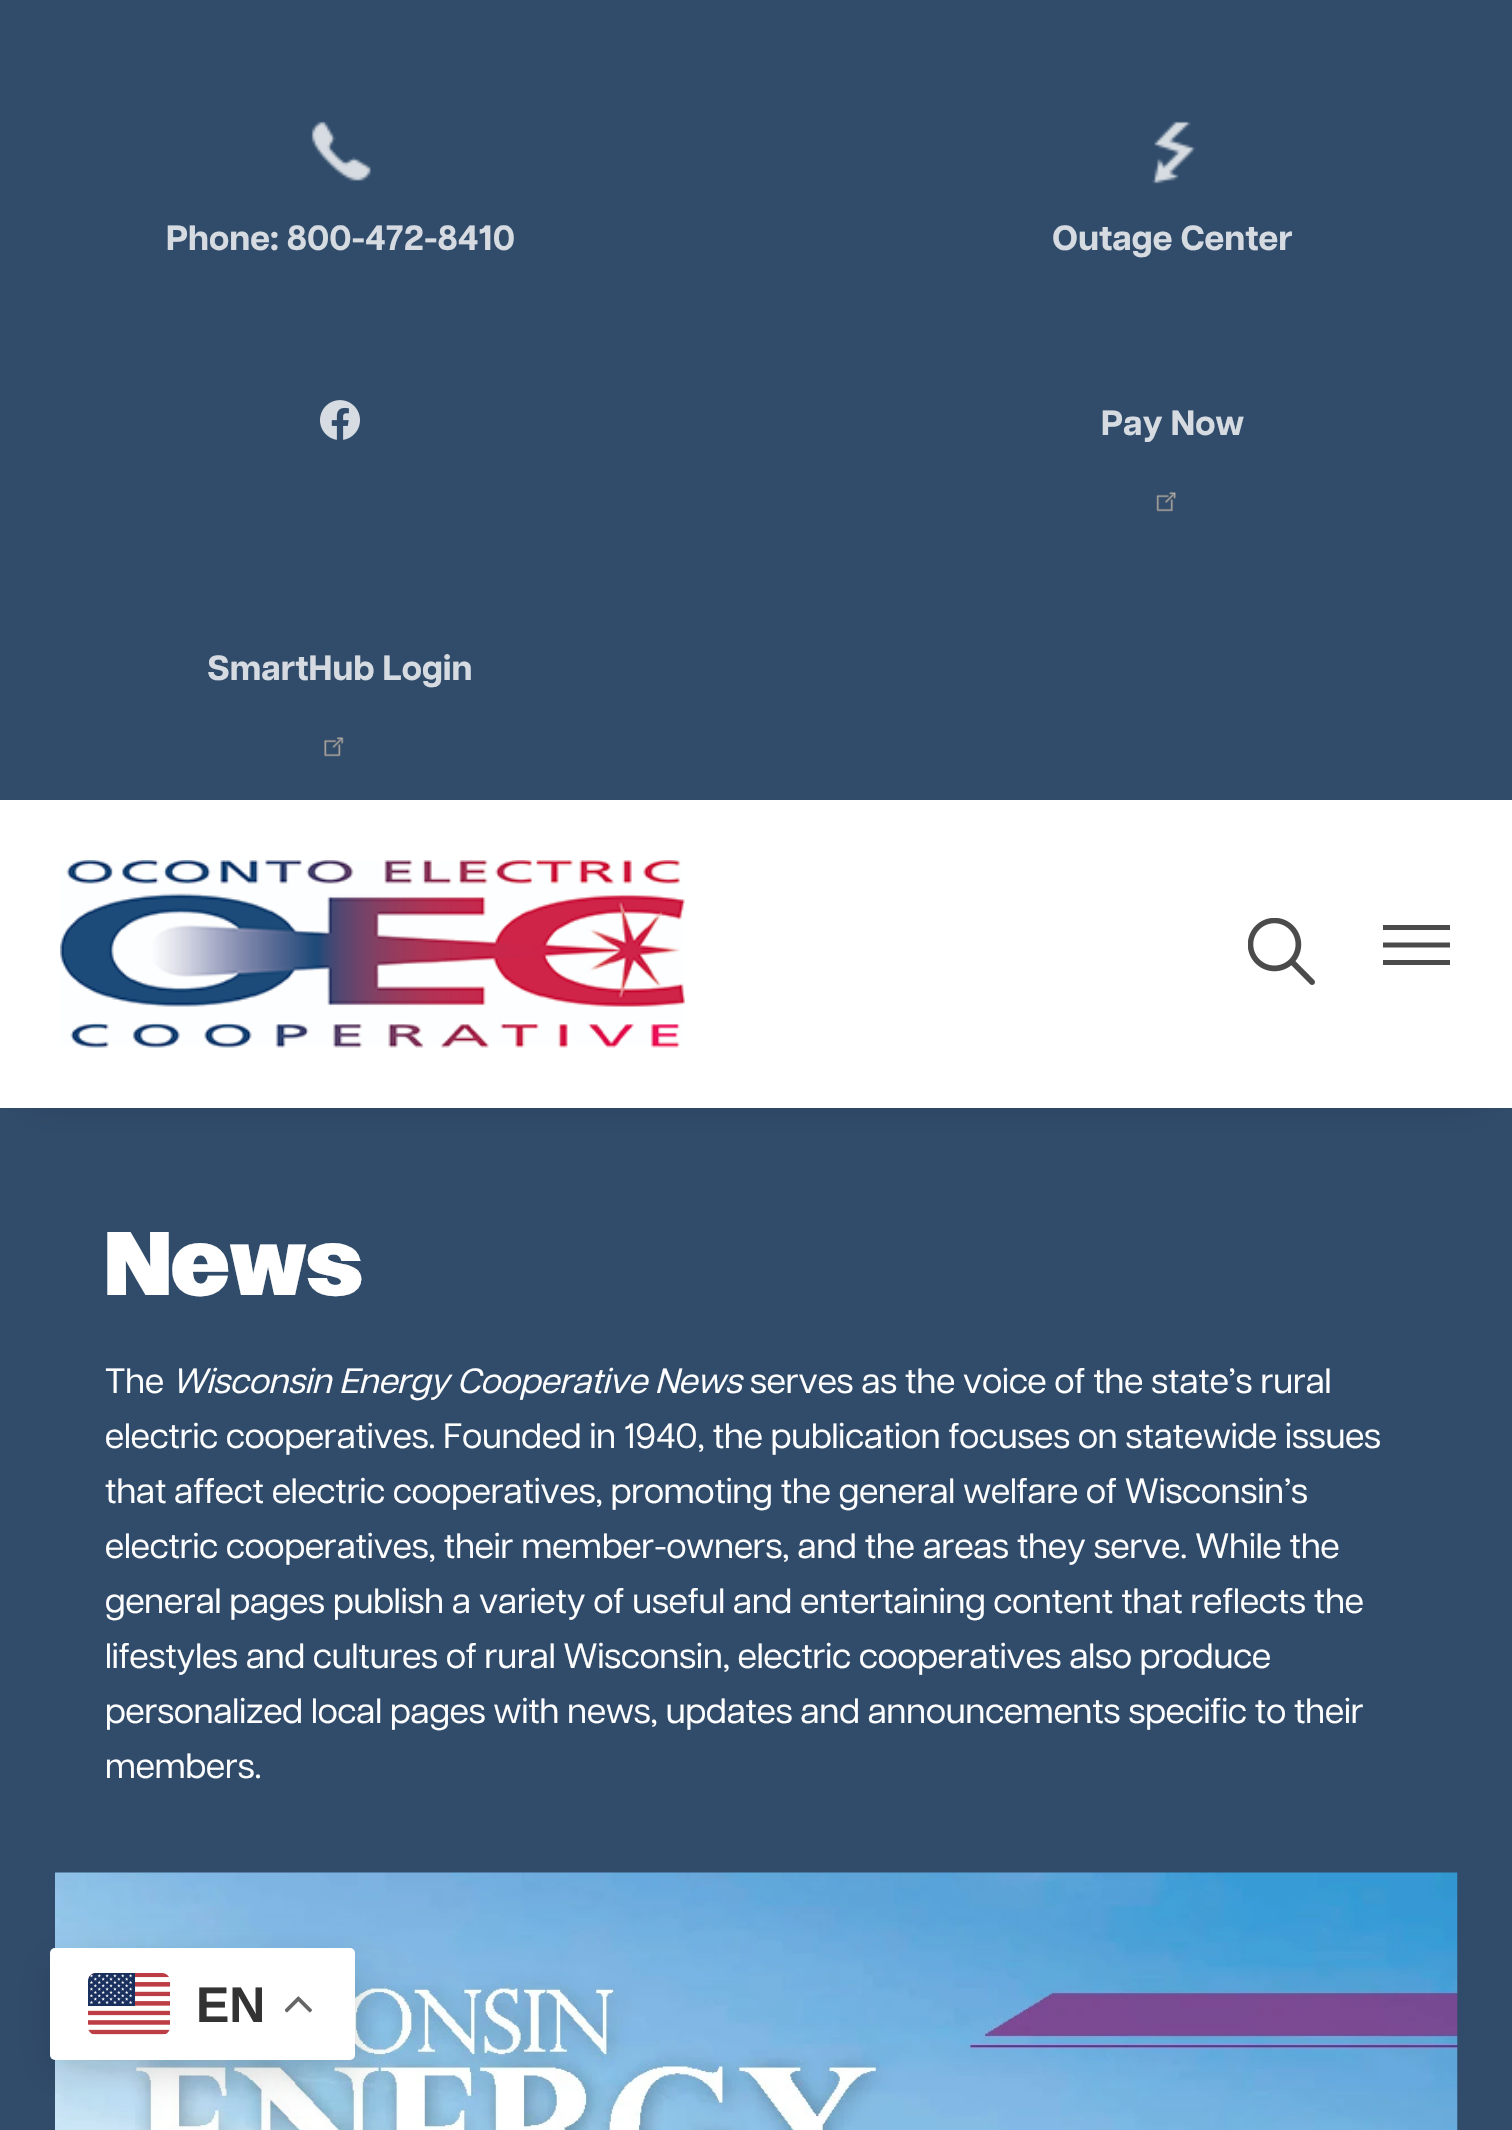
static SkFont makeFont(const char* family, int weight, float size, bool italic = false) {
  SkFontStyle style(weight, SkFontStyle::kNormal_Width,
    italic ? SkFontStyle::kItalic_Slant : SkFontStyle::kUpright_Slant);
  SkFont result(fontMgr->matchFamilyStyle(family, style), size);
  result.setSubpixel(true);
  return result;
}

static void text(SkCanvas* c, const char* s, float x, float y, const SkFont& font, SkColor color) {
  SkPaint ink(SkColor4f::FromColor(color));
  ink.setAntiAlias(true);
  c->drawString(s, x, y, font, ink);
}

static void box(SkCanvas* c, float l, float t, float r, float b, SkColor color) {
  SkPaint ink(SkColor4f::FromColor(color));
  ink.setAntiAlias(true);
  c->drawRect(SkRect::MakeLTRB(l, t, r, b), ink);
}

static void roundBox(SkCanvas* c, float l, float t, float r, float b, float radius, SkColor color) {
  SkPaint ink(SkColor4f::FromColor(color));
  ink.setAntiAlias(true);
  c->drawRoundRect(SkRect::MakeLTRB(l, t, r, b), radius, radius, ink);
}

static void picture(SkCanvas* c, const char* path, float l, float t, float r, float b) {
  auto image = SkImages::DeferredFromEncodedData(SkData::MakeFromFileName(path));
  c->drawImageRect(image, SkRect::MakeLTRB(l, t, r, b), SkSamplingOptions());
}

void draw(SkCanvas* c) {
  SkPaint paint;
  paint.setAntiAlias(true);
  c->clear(0xff314c6b);
  picture(c, "img_01.png", 311, 121, 371, 181);
  SkFont face1 = makeFont("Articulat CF", 700, 35);
  text(c, "Phone: 800-472-8410", 166, 250, face1, 0xffd6dbe1);
  picture(c, "img_02.png", 1152, 121, 1196, 184);
  text(c, "Outage Center", 1052, 250, face1, 0xffd6dbe1);
  picture(c, "img_03.png", 320, 400, 360, 440);
  text(c, "Pay Now", 1101, 435, face1, 0xffd6dbe1);
  picture(c, "img_04.png", 1156, 492, 1176, 512);
  text(c, "SmartHub Login", 207, 680, face1, 0xffd6dbe1);
  picture(c, "img_05.png", 324, 737, 344, 757);
  picture(c, "img_10.png", 55, 1872, 1458, 2130);
  paint.setColor(0x26000000);
  paint.setMaskFilter(SkMaskFilter::MakeBlur(kNormal_SkBlurStyle, 19));
  c->drawRoundRect(SkRect::MakeLTRB(50, 1960, 355, 2073), 5, 5, paint);
  paint.setMaskFilter(nullptr);
  roundBox(c, 50, 1948, 355, 2060, 5, 0xffffffff);
  picture(c, "img_06.png", 88, 1973, 170, 2035);
  SkFont face2 = makeFont("Liberation Sans", 700, 50);
  text(c, "EN", 196, 2022, face2, 0xff333333);
  picture(c, "img_07.png", 285, 1996, 312, 2013);
  paint.setMaskFilter(SkMaskFilter::MakeBlur(kNormal_SkBlurStyle, 15));
  c->drawRect(SkRect::MakeLTRB(30, 860, 1483, 1108), paint);
  paint.setMaskFilter(nullptr);
  box(c, 0, 800, 1512, 1108, 0xffffffff);
  picture(c, "img_08.png", 60, 860, 685, 1048);
  picture(c, "img_09.png", 1248, 918, 1315, 985);
  box(c, 1383, 925, 1450, 930, 0xff4b4b4b);
  c->save();
  c->clipRect(SkRect::MakeLTRB(1383, 925, 1450, 965));
  paint.setStyle(SkPaint::kStroke_Style);
  paint.setStrokeWidth(5);
  paint.setColor(0xff4b4b4b);
  c->drawPath(SkPathBuilder().moveTo(1382.5f, 945).lineTo(1450, 945).detach(), paint);
  c->restore();
  box(c, 1383, 960, 1450, 965, 0xff4b4b4b);
  SkFont face3 = makeFont("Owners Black", 900, 90);
  text(c, "News", 105, 1295, face3, 0xffffffff);
  SkFont face4 = makeFont("Articulat CF", 400, 35);
  text(c, "The", 105, 1393, face4, 0xffffffff);
  SkFont face5 = makeFont("Articulat CF", 400, 35, true);
  text(c, "Wisconsin Energy Cooperative News", 172, 1393, face5, 0xffffffff);
  text(c, "serves as the voice of the state’s rural", 750, 1393, face4, 0xffffffff);
  text(c, "electric cooperatives. Founded in 1940, the publication focuses on statewide issues", 105, 1448, face4, 0xffffffff);
  text(c, "that affect electric cooperatives, promoting the general welfare of Wisconsin’s", 105, 1503, face4, 0xffffffff);
  text(c, "electric cooperatives, their member-owners, and the areas they serve. While the", 105, 1558, face4, 0xffffffff);
  text(c, "general pages publish a variety of useful and entertaining content that reflects the", 105, 1613, face4, 0xffffffff);
  text(c, "lifestyles and cultures of rural Wisconsin, electric cooperatives also produce", 105, 1668, face4, 0xffffffff);
  text(c, "personalized local pages with news, updates and announcements specific to their", 105, 1723, face4, 0xffffffff);
  text(c, "members.", 105, 1778, face4, 0xffffffff);
}
